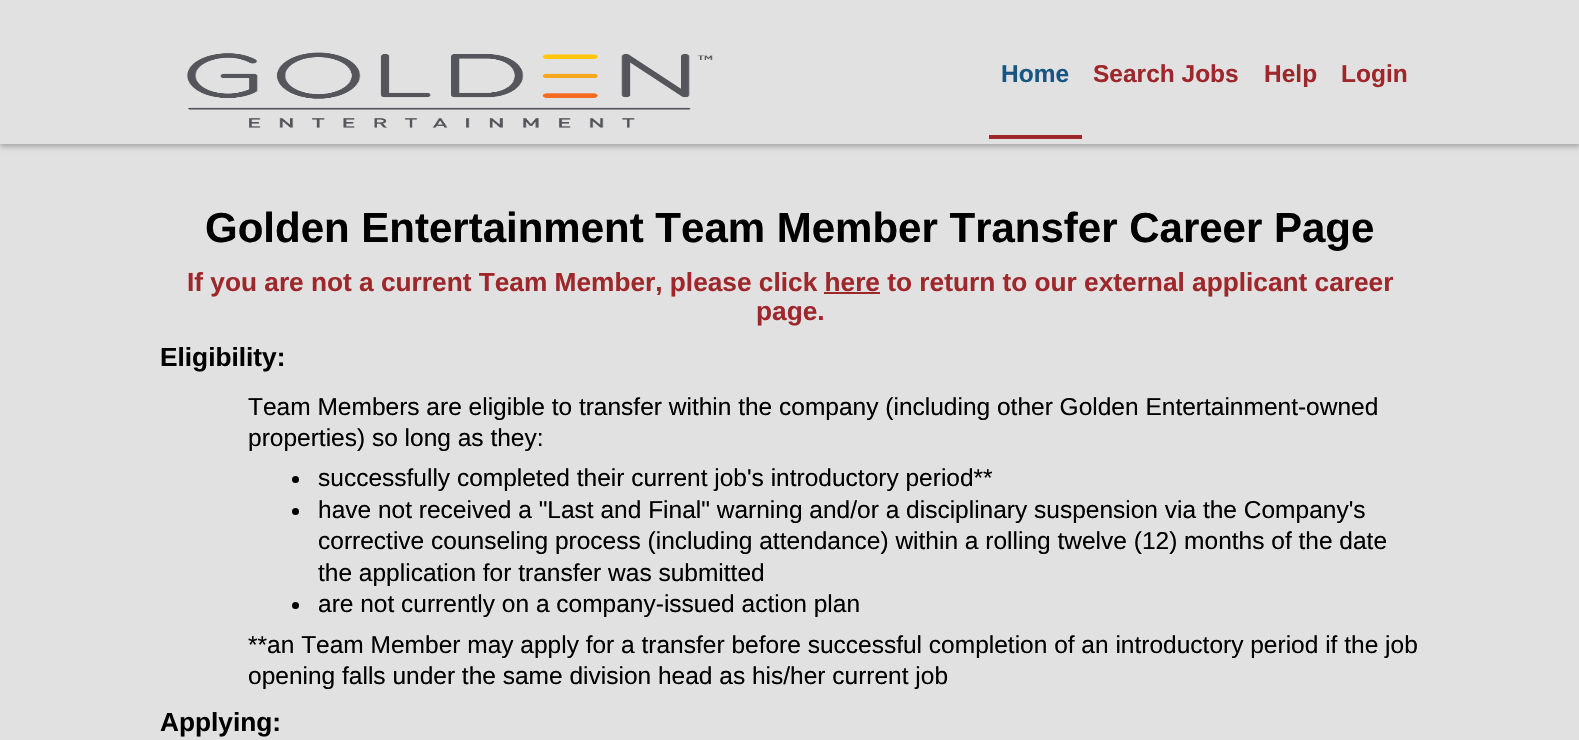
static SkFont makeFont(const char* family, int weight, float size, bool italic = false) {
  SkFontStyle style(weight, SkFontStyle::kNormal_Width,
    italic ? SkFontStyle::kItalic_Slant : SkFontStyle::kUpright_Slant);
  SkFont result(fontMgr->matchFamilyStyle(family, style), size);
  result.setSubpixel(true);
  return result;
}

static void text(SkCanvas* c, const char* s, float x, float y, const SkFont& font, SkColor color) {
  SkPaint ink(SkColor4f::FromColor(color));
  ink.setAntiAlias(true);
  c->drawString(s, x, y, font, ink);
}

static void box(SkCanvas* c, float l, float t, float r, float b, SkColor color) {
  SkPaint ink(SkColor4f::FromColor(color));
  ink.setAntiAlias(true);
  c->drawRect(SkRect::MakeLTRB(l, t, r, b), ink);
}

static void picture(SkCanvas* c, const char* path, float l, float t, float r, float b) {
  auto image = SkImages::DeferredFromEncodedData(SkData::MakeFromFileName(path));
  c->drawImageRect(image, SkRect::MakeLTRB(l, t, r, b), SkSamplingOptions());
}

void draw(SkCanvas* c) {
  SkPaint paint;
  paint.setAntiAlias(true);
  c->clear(0xffe1e1e1);
  c->save();
  c->clipPath(SkPathBuilder(SkPathFillType::kEvenOdd).moveTo(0, 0).lineTo(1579, 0).lineTo(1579, 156).lineTo(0, 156).close().moveTo(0, 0).lineTo(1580, 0).lineTo(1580, 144).lineTo(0, 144).close().detach(), true);
  paint.setColor(0xffaaaaaa);
  paint.setMaskFilter(SkMaskFilter::MakeBlur(kNormal_SkBlurStyle, 2.5f));
  c->drawRect(SkRect::MakeLTRB(0, 4, 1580, 147), paint);
  paint.setMaskFilter(nullptr);
  c->restore();
  picture(c, "img_01.png", 187, 52, 713, 128);
  box(c, 989, 135, 1082, 139, 0xff9e272b);
  SkFont face1 = makeFont("Liberation Sans", 700, 24.5f);
  text(c, "Home", 1001, 82, face1, 0xff165680);
  text(c, "Search Jobs", 1093, 82, face1, 0xff9e272b);
  text(c, "Help", 1264, 82, face1, 0xff9e272b);
  text(c, "Login", 1341, 82, face1, 0xff9e272b);
  SkFont face2 = makeFont("Liberation Sans", 700, 42);
  text(c, "Golden Entertainment Team Member Transfer Career Page", 205, 242, face2, 0xff000000);
  SkFont face3 = makeFont("Liberation Sans", 700, 26.25f);
  text(c, "If you are not a current Team Member, please click here to return to our external applicant career", 187, 291, face3, 0xff9e272b);
  box(c, 824, 292, 880, 294, 0xff9e272b);
  text(c, "page.", 756, 320, face3, 0xff9e272b);
  text(c, "Eligibility:", 160, 366, face3, 0xff000000);
  SkFont face4 = makeFont("Liberation Sans", 400, 24.5f);
  text(c, "Team Members are eligible to transfer within the company (including other Golden Entertainment-owned", 248, 415, face4, 0xff000000);
  text(c, "properties) so long as they:", 248, 446, face4, 0xff000000);
  paint.setColor(0xff000000);
  c->drawCircle(295.5f, 479.5f, 3.5f, paint);
  text(c, "successfully completed their current job's introductory period**", 318, 486, face4, 0xff000000);
  c->drawCircle(295.5f, 511.5f, 3.5f, paint);
  text(c, "have not received a \"Last and Final\" warning and/or a disciplinary suspension via the Company's", 318, 518, face4, 0xff000000);
  text(c, "corrective counseling process (including attendance) within a rolling twelve (12) months of the date", 318, 549, face4, 0xff000000);
  text(c, "the application for transfer was submitted", 318, 581, face4, 0xff000000);
  c->drawCircle(295.5f, 605.5f, 3.5f, paint);
  text(c, "are not currently on a company-issued action plan", 318, 612, face4, 0xff000000);
  text(c, "**an Team Member may apply for a transfer before successful completion of an introductory period if the job", 248, 653, face4, 0xff000000);
  text(c, "opening falls under the same division head as his/her current job", 248, 684, face4, 0xff000000);
  text(c, "Applying:", 160, 731, face3, 0xff000000);
}
